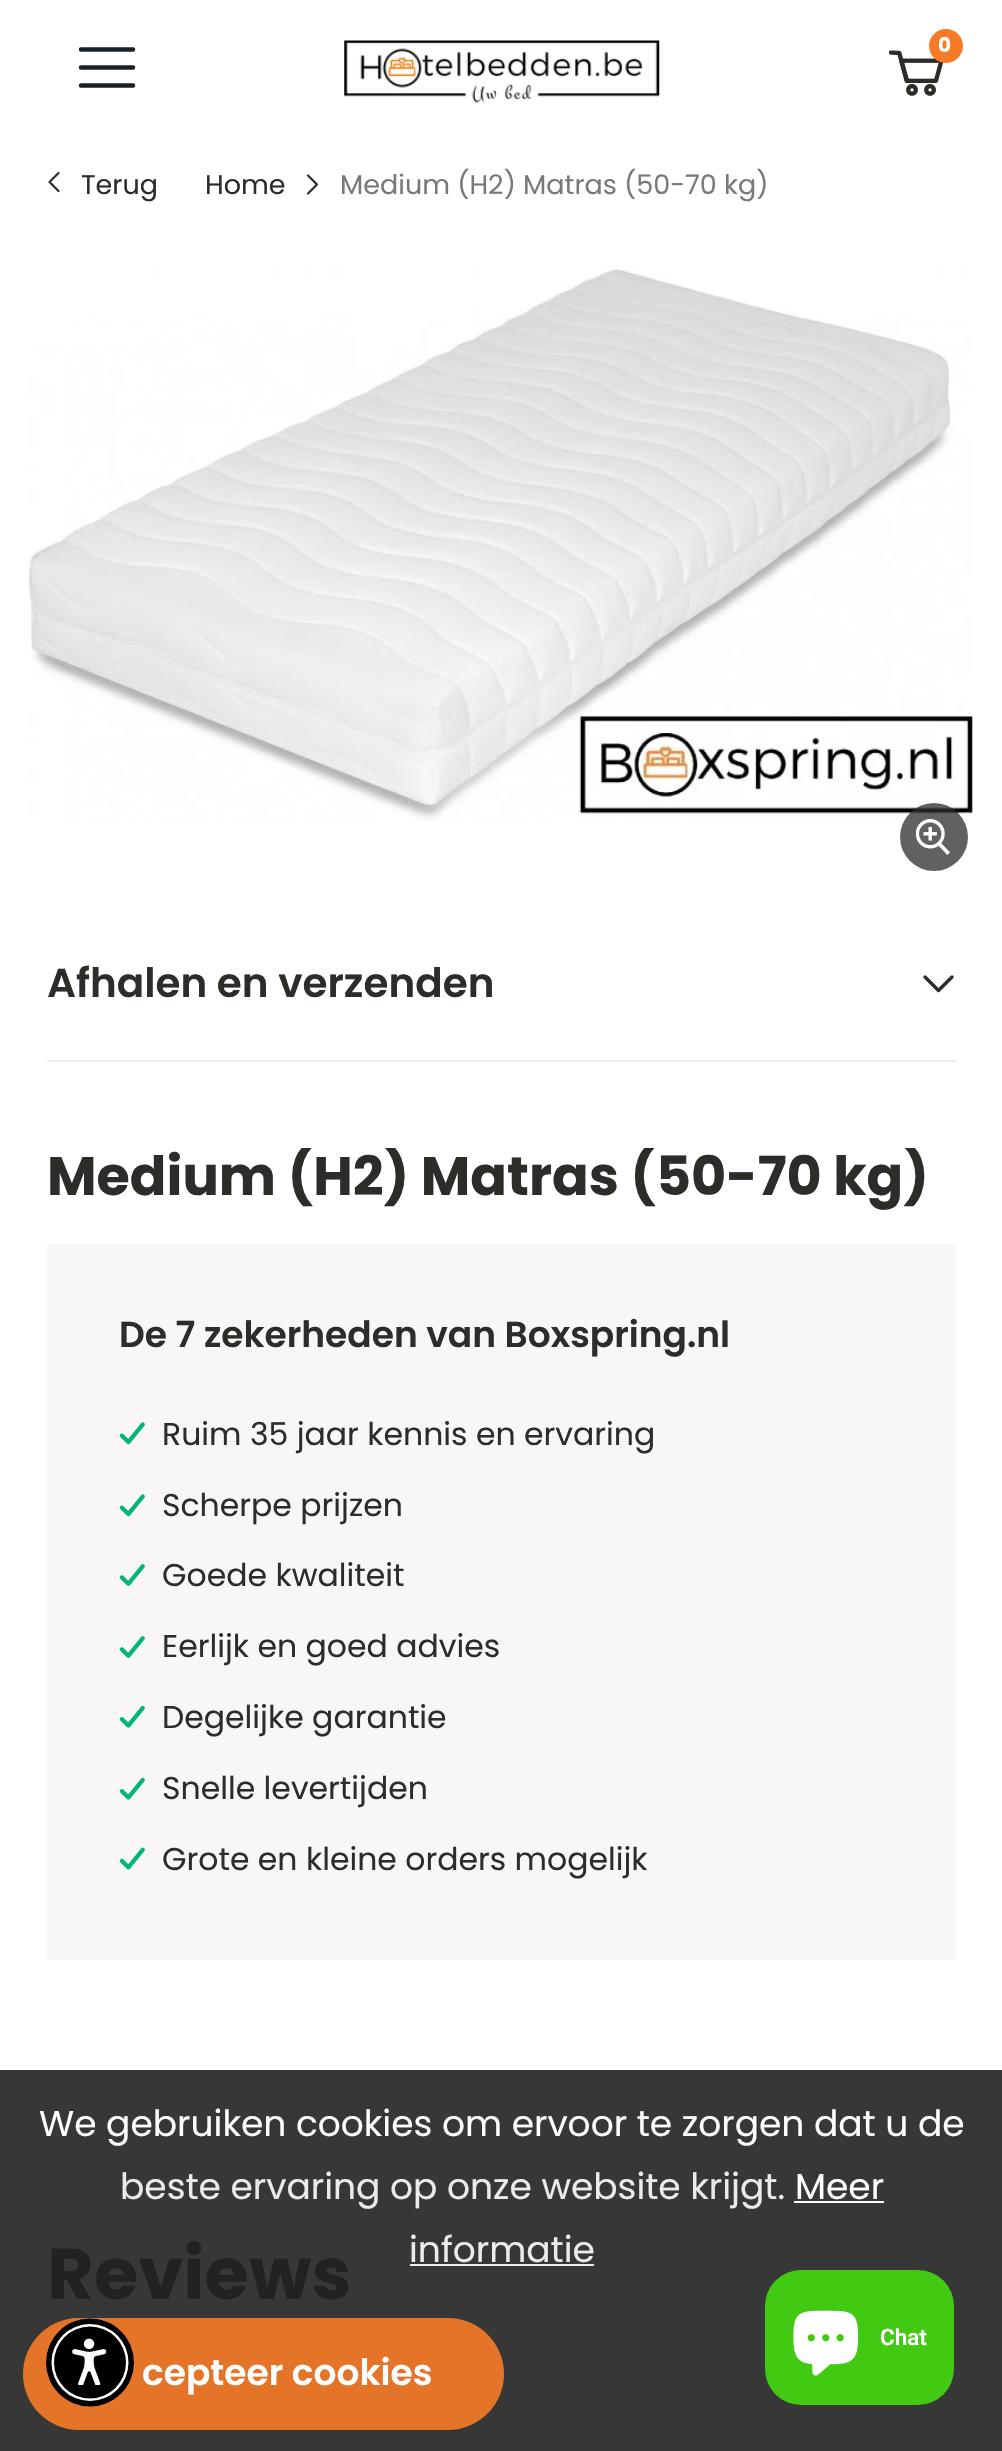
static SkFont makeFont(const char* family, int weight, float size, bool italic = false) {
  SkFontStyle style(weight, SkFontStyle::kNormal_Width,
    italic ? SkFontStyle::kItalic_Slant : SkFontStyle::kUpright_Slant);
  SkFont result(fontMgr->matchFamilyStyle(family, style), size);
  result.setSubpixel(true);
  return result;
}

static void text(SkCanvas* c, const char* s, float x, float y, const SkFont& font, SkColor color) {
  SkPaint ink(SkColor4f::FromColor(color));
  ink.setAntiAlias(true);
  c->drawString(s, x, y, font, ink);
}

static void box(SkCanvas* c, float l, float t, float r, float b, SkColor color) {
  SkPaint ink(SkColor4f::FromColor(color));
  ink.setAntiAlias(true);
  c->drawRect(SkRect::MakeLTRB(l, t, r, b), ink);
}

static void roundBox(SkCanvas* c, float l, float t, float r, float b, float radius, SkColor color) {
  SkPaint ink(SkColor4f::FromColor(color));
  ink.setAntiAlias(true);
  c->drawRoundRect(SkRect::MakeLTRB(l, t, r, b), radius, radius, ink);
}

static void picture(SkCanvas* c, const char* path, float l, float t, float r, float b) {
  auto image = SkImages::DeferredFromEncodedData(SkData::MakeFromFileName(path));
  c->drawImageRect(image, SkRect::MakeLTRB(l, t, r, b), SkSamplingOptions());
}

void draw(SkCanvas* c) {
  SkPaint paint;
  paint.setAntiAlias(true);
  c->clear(0xffffffff);
  box(c, 0, 2070, 1002, 2451, 0xff373737);
  paint.setStyle(SkPaint::kStroke_Style);
  paint.setStrokeWidth(4.5f);
  paint.setStrokeCap(SkPaint::kRound_Cap);
  paint.setColor(0xff181f25);
  c->drawPath(SkPathBuilder().moveTo(81, 49.5f).lineTo(133, 49.5f).moveTo(81, 67.5f).lineTo(133, 67.5f).moveTo(81, 85.5f).lineTo(133, 85.5f).detach(), paint);
  picture(c, "img_01.png", 344, 40, 660, 103);
  picture(c, "img_02.png", 889, 50, 944, 96);
  paint.setStyle(SkPaint::kFill_Style);
  paint.setColor(0xfff77b26);
  c->drawCircle(946, 46, 17, paint);
  SkFont face1 = makeFont("Poppins", 700, 20);
  text(c, "0", 938, 52, face1, 0xffffffff);
  paint.setStyle(SkPaint::kStroke_Style);
  paint.setStrokeWidth(2.2f);
  paint.setStrokeJoin(SkPaint::kRound_Join);
  paint.setColor(0xff2e2c29);
  c->drawPath(SkPathBuilder().moveTo(58.5f, 191).lineTo(49.5f, 182).lineTo(58.5f, 173).detach(), paint);
  SkFont face2 = makeFont("Poppins", 400, 27);
  text(c, "Terug", 81, 194, face2, 0xff2e2c29);
  text(c, "Home", 205, 194, face2, 0xff2e2c29);
  c->drawPath(SkPathBuilder().moveTo(308, 175.5f).lineTo(317, 184.5f).lineTo(308, 193.5f).detach(), paint);
  text(c, "Medium (H2) Matras (50-70 kg)", 340, 194, face2, 0xff797979);
  picture(c, "img_03.png", 27, 269, 973, 822);
  paint.setStyle(SkPaint::kFill_Style);
  paint.setColor(0xbf2e2c29);
  c->drawCircle(934, 837, 34, paint);
  picture(c, "img_04.png", 916, 819, 950, 855);
  box(c, 47, 1060, 956, 1062, 0xffe6edf6);
  SkFont face3 = makeFont("Poppins", 600, 40.5f);
  text(c, "Afhalen en verzenden", 47, 997, face3, 0xff2e2c29);
  paint.setStyle(SkPaint::kStroke_Style);
  paint.setStrokeWidth(3.4f);
  paint.setColor(0xff2e2c29);
  c->drawPath(SkPathBuilder().moveTo(952, 977).lineTo(938.5f, 990.5f).lineTo(925, 977).detach(), paint);
  c->save();
  c->clipRect(SkRect::MakeLTRB(47, 1148, 956, 1960));
  SkFont face4 = makeFont("Poppins", 700, 54);
  text(c, "Medium (H2) Matras (50-70 kg)", 47, 1195, face4, 0xff2e2c29);
  c->restore();
  box(c, 47, 1244, 956, 1960, 0xfff9f7f6);
  SkFont face5 = makeFont("Poppins", 600, 36);
  text(c, "De 7 zekerheden van Boxspring.nl", 119, 1347, face5, 0xff2e2c29);
  picture(c, "img_05.png", 119, 1422, 145, 1445);
  SkFont face6 = makeFont("Poppins", 400, 31.5f);
  text(c, "Ruim 35 jaar kennis en ervaring", 162, 1445, face6, 0xff2e2c29);
  picture(c, "img_05.png", 119, 1494, 145, 1517);
  text(c, "Scherpe prijzen", 162, 1516, face6, 0xff2e2c29);
  picture(c, "img_06.png", 119, 1564, 145, 1586);
  text(c, "Goede kwaliteit", 162, 1586, face6, 0xff2e2c29);
  picture(c, "img_06.png", 119, 1636, 145, 1658);
  text(c, "Eerlijk en goed advies", 162, 1657, face6, 0xff2e2c29);
  picture(c, "img_07.png", 119, 1705, 145, 1728);
  text(c, "Degelijke garantie", 162, 1728, face6, 0xff2e2c29);
  picture(c, "img_07.png", 119, 1777, 145, 1800);
  text(c, "Snelle levertijden", 162, 1799, face6, 0xff2e2c29);
  picture(c, "img_08.png", 119, 1847, 145, 1870);
  text(c, "Grote en kleine orders mogelijk", 162, 1870, face6, 0xff2e2c29);
  SkFont face7 = makeFont("Poppins", 700, 72);
  text(c, "Reviews", 47, 2299, face7, 0xff222222);
  SkFont face8 = makeFont("Poppins", 400, 36);
  text(c, "We gebruiken cookies om ervoor te zorgen dat u de", 39, 2136, face8, 0xffffffff);
  text(c, "beste ervaring op onze website krijgt.", 120, 2199, face8, 0xffebebeb);
  text(c, "Meer", 795, 2199, face8, 0xffffffff);
  box(c, 794, 2201, 884, 2203, 0xfffefdfd);
  text(c, "informatie", 409, 2262, face8, 0xffebebeb);
  box(c, 410, 2264, 594, 2266, 0xffebebeb);
  roundBox(c, 23, 2318, 504, 2430, 56, 0xffe47428);
  text(c, "cepteer cookies", 142, 2385, face5, 0xffffffff);
  paint.setStyle(SkPaint::kFill_Style);
  paint.setColor(0xff000000);
  c->drawCircle(90, 2362.5f, 44, paint);
  paint.setColor(0xffffffff);
  c->drawCircle(90, 2362.5f, 38.5f, paint);
  paint.setColor(0xff000000);
  c->drawCircle(90, 2362.5f, 36, paint);
  picture(c, "img_09.png", 72, 2338, 107, 2385);
  roundBox(c, 765, 2270, 954, 2405, 36, 0xff42ca13);
  picture(c, "img_10.png", 793, 2310, 859, 2376);
  SkFont face9 = makeFont("Roboto", 600, 22.5f);
  text(c, "Chat", 880, 2345, face9, 0xffffffff);
}
